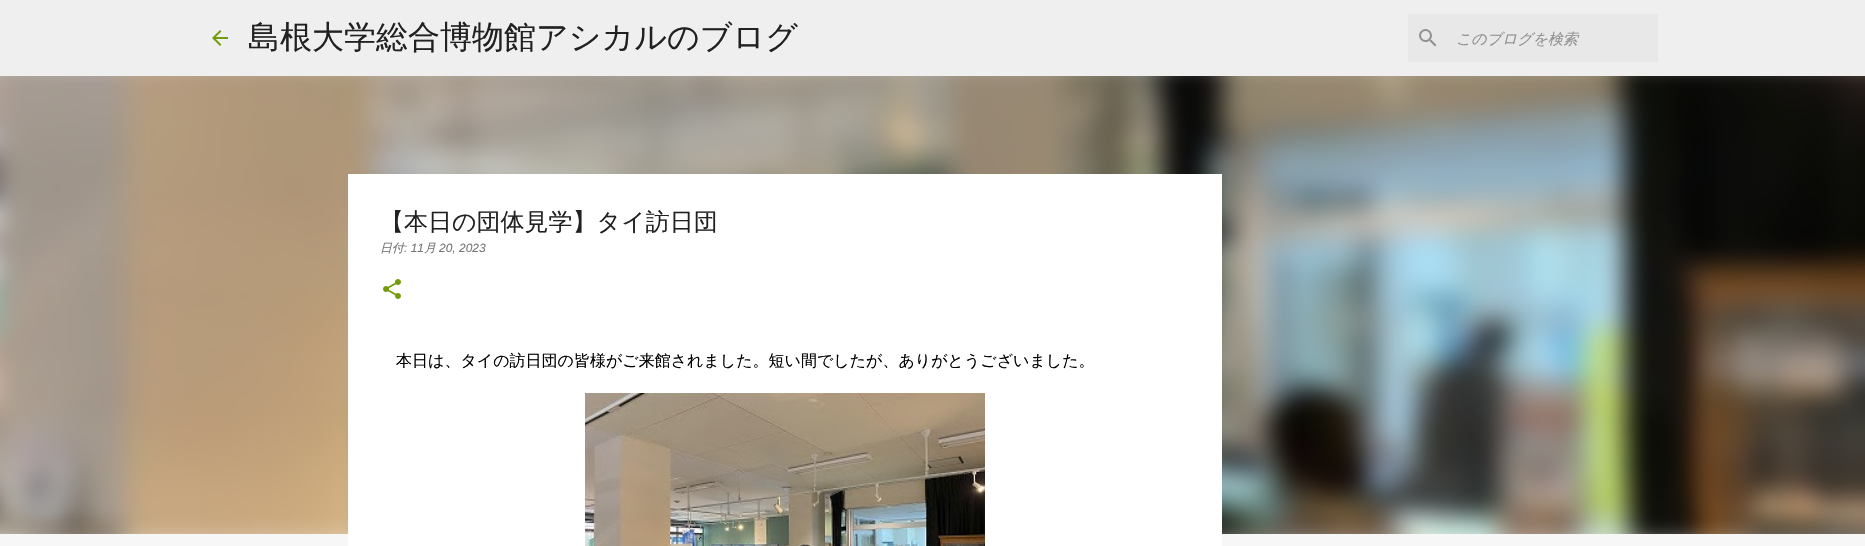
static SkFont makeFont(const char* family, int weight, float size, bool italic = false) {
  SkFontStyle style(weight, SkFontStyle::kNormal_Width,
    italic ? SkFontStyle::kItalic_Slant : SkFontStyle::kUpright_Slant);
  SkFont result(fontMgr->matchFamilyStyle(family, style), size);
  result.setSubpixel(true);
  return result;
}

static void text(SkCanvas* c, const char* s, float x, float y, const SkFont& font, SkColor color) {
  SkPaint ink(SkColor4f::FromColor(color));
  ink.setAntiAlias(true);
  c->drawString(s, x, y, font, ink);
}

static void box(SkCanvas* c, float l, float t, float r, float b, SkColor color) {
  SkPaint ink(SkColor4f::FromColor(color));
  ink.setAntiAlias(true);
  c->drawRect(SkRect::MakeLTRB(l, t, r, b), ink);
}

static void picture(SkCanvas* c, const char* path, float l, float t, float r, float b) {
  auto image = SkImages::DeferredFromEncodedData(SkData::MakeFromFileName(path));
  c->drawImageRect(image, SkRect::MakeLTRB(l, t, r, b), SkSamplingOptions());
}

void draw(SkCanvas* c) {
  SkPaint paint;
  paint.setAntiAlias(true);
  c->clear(0xfff7f7f7);
  box(c, 0, 0, 1865, 76, 0xffefefef);
  picture(c, "img_01.png", 212, 30, 228, 46);
  SkFont face1 = makeFont("WenQuanYi Zen Hei", 500, 32);
  text(c, "島根大学総合博物館アシカルのブログ", 248, 48, face1, 0xff212121);
  box(c, 1408, 14, 1658, 62, 0xffe8e8e8);
  picture(c, "img_02.png", 1419, 29, 1437, 47);
  SkFont face2 = makeFont("WenQuanYi Zen Hei", 500, 15, true);
  text(c, "このブログを検索", 1456, 44, face2, 0xff909090);
  picture(c, "img_05.png", 0, 76, 1865, 534);
  box(c, 348, 174, 1222, 546, 0xffffffff);
  SkFont face3 = makeFont("WenQuanYi Zen Hei", 500, 24);
  text(c, "【本日の団体見学】タイ訪日団", 380, 230, face3, 0xff212121);
  SkFont face4 = makeFont("WenQuanYi Zen Hei", 500, 12, true);
  text(c, "日付", 380, 252, face4, 0xff757575);
  SkFont face5 = makeFont("Liberation Sans", 400, 12, true);
  text(c, ": 11", 404, 252, face5, 0xff757575);
  text(c, "月", 424, 252, face4, 0xff757575);
  text(c, "20, 2023", 439, 252, face5, 0xff757575);
  picture(c, "img_03.png", 383, 279, 401, 299);
  SkFont face6 = makeFont("WenQuanYi Zen Hei", 500, 16);
  text(c, "本日は、タイの訪日団の皆様がご来館されました。短い間でしたが、ありがとうございました。", 396, 366, face6, 0xff000000);
  picture(c, "img_04.png", 585, 393, 985, 546);
}
